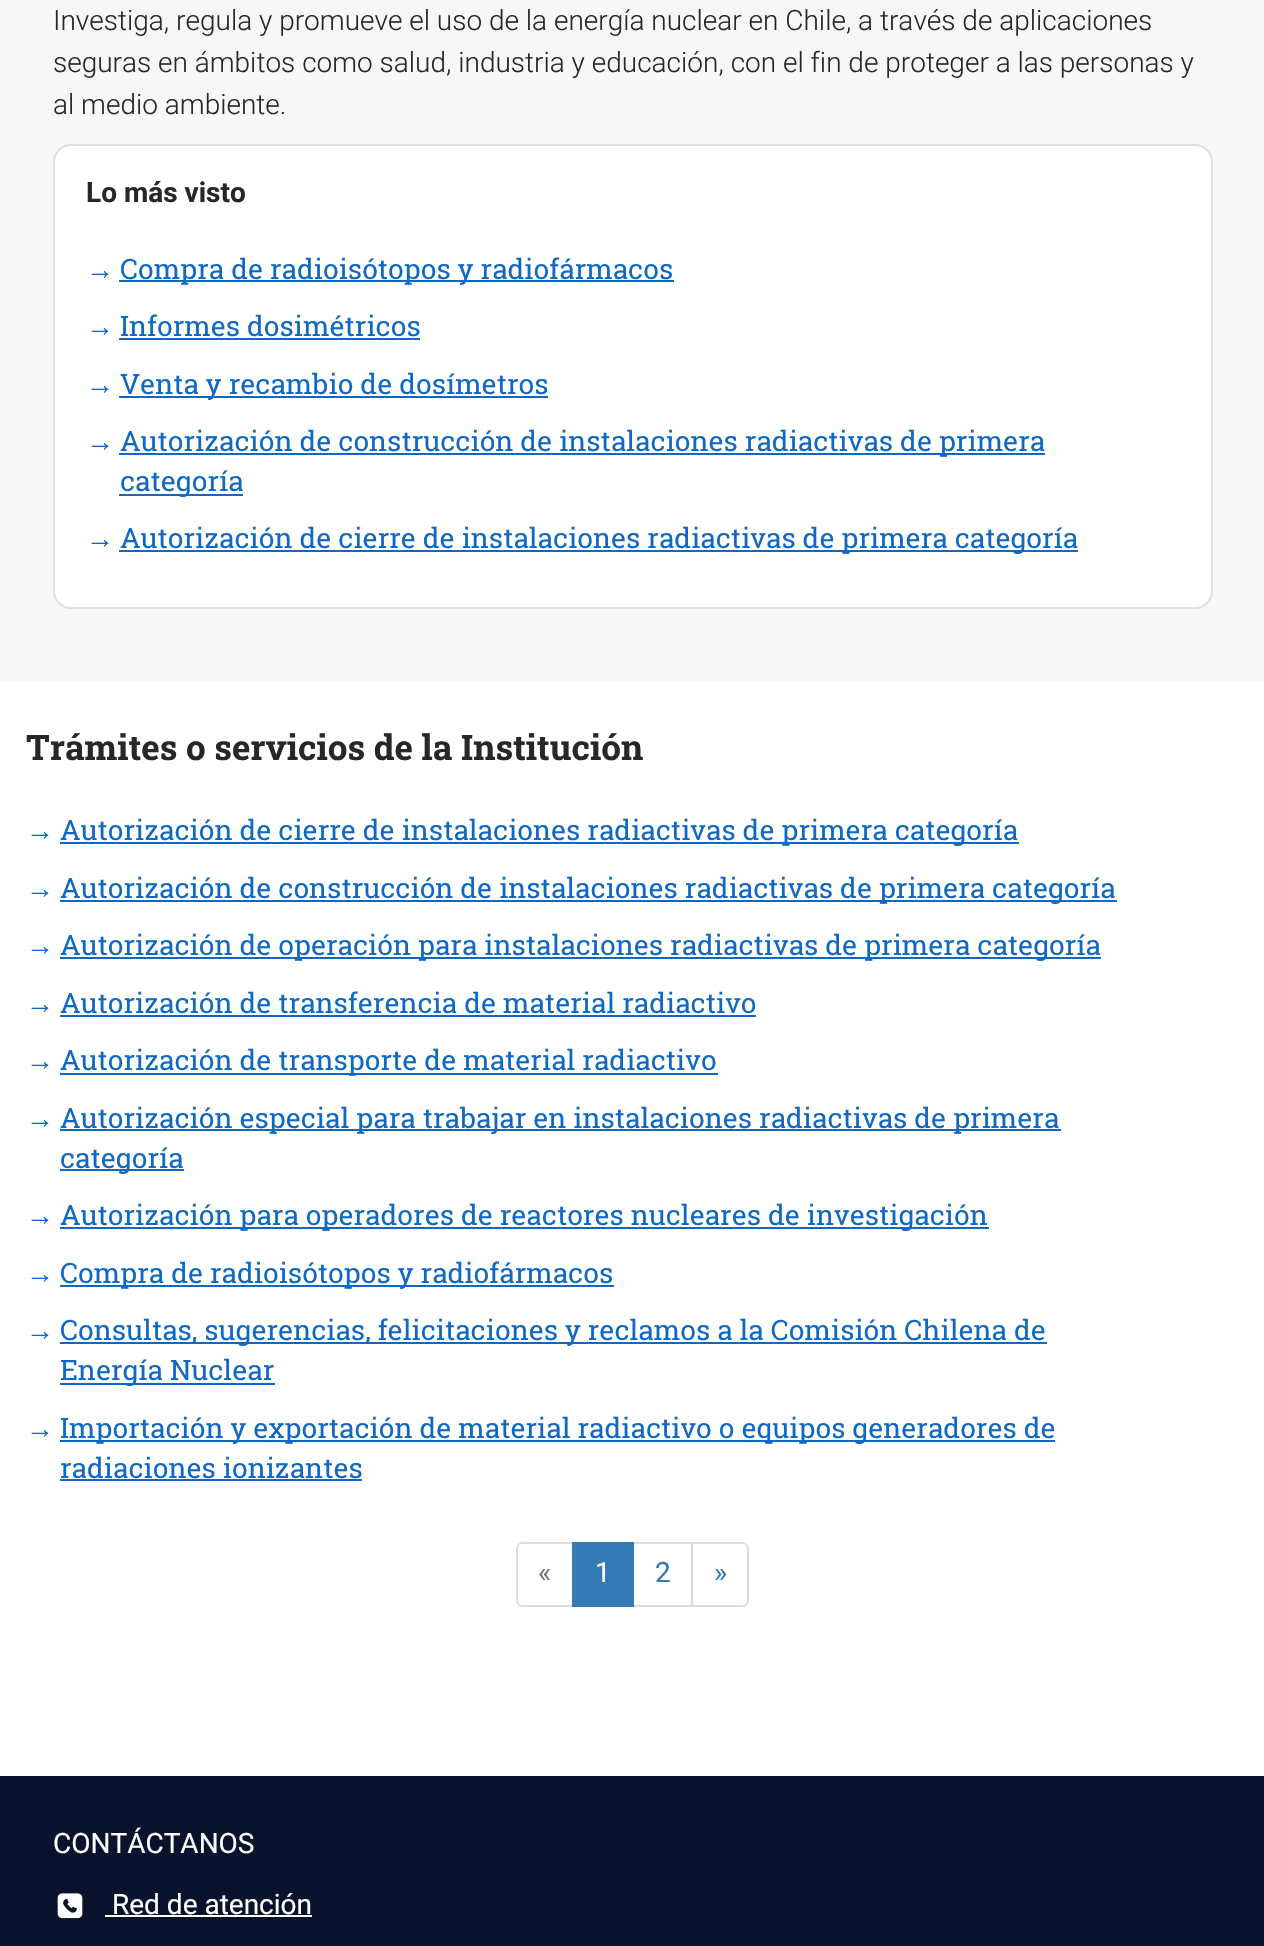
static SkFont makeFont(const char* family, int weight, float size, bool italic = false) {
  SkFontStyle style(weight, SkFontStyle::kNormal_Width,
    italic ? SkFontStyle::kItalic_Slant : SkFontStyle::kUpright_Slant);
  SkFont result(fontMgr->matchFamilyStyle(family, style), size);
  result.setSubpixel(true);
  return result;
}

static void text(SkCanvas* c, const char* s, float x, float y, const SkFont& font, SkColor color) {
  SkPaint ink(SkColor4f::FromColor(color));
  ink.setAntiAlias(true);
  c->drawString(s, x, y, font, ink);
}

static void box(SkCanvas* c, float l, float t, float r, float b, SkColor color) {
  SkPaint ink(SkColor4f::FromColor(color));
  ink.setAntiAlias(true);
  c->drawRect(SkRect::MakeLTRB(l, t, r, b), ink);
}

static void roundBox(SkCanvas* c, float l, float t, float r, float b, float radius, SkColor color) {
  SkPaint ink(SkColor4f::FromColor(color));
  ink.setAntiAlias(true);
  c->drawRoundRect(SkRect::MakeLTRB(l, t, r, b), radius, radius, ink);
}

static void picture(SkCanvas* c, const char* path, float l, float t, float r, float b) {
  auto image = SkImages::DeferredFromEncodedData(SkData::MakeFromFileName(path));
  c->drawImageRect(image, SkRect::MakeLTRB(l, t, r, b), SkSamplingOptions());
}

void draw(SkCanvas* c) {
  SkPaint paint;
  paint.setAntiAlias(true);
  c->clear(0xff09132e);
  box(c, 0, 681, 1264, 1776, 0xffffffff);
  box(c, 0, 0, 1264, 681, 0xfff7f7f7);
  SkFont face1 = makeFont("Roboto", 300, 28);
  text(c, "Investiga, regula y promueve el uso de la energía nuclear en Chile, a través de aplicaciones", 53, 30, face1, 0xff272727);
  text(c, "seguras en ámbitos como salud, industria y educación, con el fin de proteger a las personas y", 53, 72, face1, 0xff272727);
  text(c, "al medio ambiente.", 53, 114, face1, 0xff272727);
  roundBox(c, 53, 144, 1213, 609, 18, 0xffffffff);
  paint.setStyle(SkPaint::kStroke_Style);
  paint.setStrokeWidth(2);
  paint.setColor(0x1f000000);
  c->drawRoundRect(SkRect::MakeLTRB(54, 145, 1212, 608), 17, 17, paint);
  SkFont face2 = makeFont("Roboto", 700, 28);
  text(c, "Lo más visto", 86, 202, face2, 0xff272727);
  SkFont face3 = makeFont("Liberation Serif", 400, 28);
  text(c, "→", 86, 279, face3, 0xff0f69c4);
  box(c, 119, 280, 674, 282, 0xff0f69c4);
  SkFont face4 = makeFont("Roboto Slab", 400, 28);
  text(c, "Compra de radioisótopos y radiofármacos", 120, 279, face4, 0xff0f69c4);
  text(c, "→", 86, 336, face3, 0xff0f69c4);
  text(c, "Informes dosimétricos", 120, 336, face4, 0xff0f69c4);
  box(c, 119, 338, 420, 340, 0xff0f69c4);
  text(c, "→", 86, 394, face3, 0xff0f69c4);
  box(c, 119, 396, 548, 398, 0xff0f69c4);
  text(c, "Venta y recambio de dosímetros", 120, 394, face4, 0xff0f69c4);
  text(c, "→", 86, 451, face3, 0xff0f69c4);
  box(c, 119, 453, 1045, 455, 0xff0f69c4);
  text(c, "Autorización de construcción de instalaciones radiactivas de primera", 120, 451, face4, 0xff0f69c4);
  box(c, 119, 494, 243, 496, 0xff0f69c4);
  text(c, "categoría", 120, 491, face4, 0xff0f69c4);
  text(c, "→", 86, 548, face3, 0xff0f69c4);
  box(c, 119, 550, 1078, 552, 0xff0f69c4);
  text(c, "Autorización de cierre de instalaciones radiactivas de primera categoría", 120, 548, face4, 0xff0f69c4);
  SkFont face5 = makeFont("Roboto Slab", 700, 35);
  text(c, "Trámites o servicios de la Institución", 26, 760, face5, 0xff272727);
  text(c, "→", 26, 840, face3, 0xff0f69c4);
  box(c, 60, 842, 1019, 844, 0xff0f69c4);
  text(c, "Autorización de cierre de instalaciones radiactivas de primera categoría", 60, 840, face4, 0xff0f69c4);
  text(c, "→", 26, 898, face3, 0xff0f69c4);
  box(c, 60, 900, 1117, 902, 0xff0f69c4);
  text(c, "Autorización de construcción de instalaciones radiactivas de primera categoría", 60, 898, face4, 0xff0f69c4);
  text(c, "→", 26, 955, face3, 0xff0f69c4);
  box(c, 60, 957, 1101, 959, 0xff0f69c4);
  text(c, "Autorización de operación para instalaciones radiactivas de primera categoría", 60, 955, face4, 0xff0f69c4);
  text(c, "→", 26, 1013, face3, 0xff0f69c4);
  text(c, "Autorización de transferencia de material radiactivo", 60, 1013, face4, 0xff0f69c4);
  box(c, 60, 1015, 756, 1017, 0xff0f69c4);
  text(c, "→", 26, 1070, face3, 0xff0f69c4);
  box(c, 60, 1073, 718, 1075, 0xff0f69c4);
  text(c, "Autorización de transporte de material radiactivo", 60, 1070, face4, 0xff0f69c4);
  text(c, "→", 26, 1128, face3, 0xff0f69c4);
  box(c, 60, 1129, 1061, 1131, 0xff0f69c4);
  text(c, "Autorización especial para trabajar en instalaciones radiactivas de primera", 60, 1128, face4, 0xff0f69c4);
  box(c, 60, 1169, 184, 1171, 0xff0f69c4);
  text(c, "categoría", 60, 1168, face4, 0xff0f69c4);
  text(c, "→", 26, 1225, face3, 0xff0f69c4);
  box(c, 60, 1227, 989, 1229, 0xff0f69c4);
  text(c, "Autorización para operadores de reactores nucleares de investigación", 60, 1225, face4, 0xff0f69c4);
  text(c, "→", 26, 1283, face3, 0xff0f69c4);
  box(c, 60, 1285, 614, 1287, 0xff0f69c4);
  text(c, "Compra de radioisótopos y radiofármacos", 60, 1283, face4, 0xff0f69c4);
  text(c, "→", 26, 1340, face3, 0xff0f69c4);
  box(c, 60, 1342, 1047, 1344, 0xff0f69c4);
  text(c, "Consultas, sugerencias, felicitaciones y reclamos a la Comisión Chilena de", 60, 1340, face4, 0xff0f69c4);
  box(c, 60, 1383, 275, 1385, 0xff0f69c4);
  text(c, "Energía Nuclear", 60, 1380, face4, 0xff0f69c4);
  text(c, "→", 26, 1438, face3, 0xff0f69c4);
  box(c, 60, 1440, 1055, 1442, 0xff0f69c4);
  text(c, "Importación y exportación de material radiactivo o equipos generadores de", 60, 1438, face4, 0xff0f69c4);
  text(c, "radiaciones ionizantes", 60, 1478, face4, 0xff0f69c4);
  box(c, 60, 1479, 362, 1481, 0xff0f69c4);
  paint.setColor(0xffdddddd);
  c->drawPath(SkPathBuilder().moveTo(523, 1543).lineTo(573, 1543).lineTo(573, 1606).lineTo(523, 1606).cubicTo(519.5f, 1606, 517, 1603.5f, 517, 1600).lineTo(517, 1549).cubicTo(517, 1545.5f, 519.5f, 1543, 523, 1543).close().detach(), paint);
  SkFont face6 = makeFont("Roboto", 400, 28);
  text(c, "«", 538, 1582, face6, 0xff777777);
  c->drawRect(SkRect::MakeLTRB(633, 1543, 692, 1606), paint);
  box(c, 572, 1542, 634, 1607, 0xff337ab7);
  text(c, "1", 595, 1582, face6, 0xffffffff);
  text(c, "2", 655, 1582, face6, 0xff337ab7);
  paint.setStyle(SkPaint::kFill_Style);
  paint.setColor(0xffffffff);
  c->drawPath(SkPathBuilder().moveTo(692, 1543).lineTo(742, 1543).cubicTo(745.5f, 1543, 748, 1545.5f, 748, 1549).lineTo(748, 1600).cubicTo(748, 1603.5f, 745.5f, 1606, 742, 1606).lineTo(692, 1606).close().detach(), paint);
  paint.setStyle(SkPaint::kStroke_Style);
  paint.setColor(0xffdddddd);
  c->drawPath(SkPathBuilder().moveTo(692, 1543).lineTo(742, 1543).cubicTo(745.5f, 1543, 748, 1545.5f, 748, 1549).lineTo(748, 1600).cubicTo(748, 1603.5f, 745.5f, 1606, 742, 1606).lineTo(692, 1606).close().detach(), paint);
  text(c, "»", 714, 1582, face6, 0xff337ab7);
  text(c, "CONTÁCTANOS", 53, 1853, face6, 0xffffffff);
  picture(c, "img_01.png", 57, 1893, 83, 1919);
  text(c, "Red de atención", 112, 1914, face6, 0xffffffff);
  box(c, 105, 1915, 312, 1917, 0xffffffff);
}
